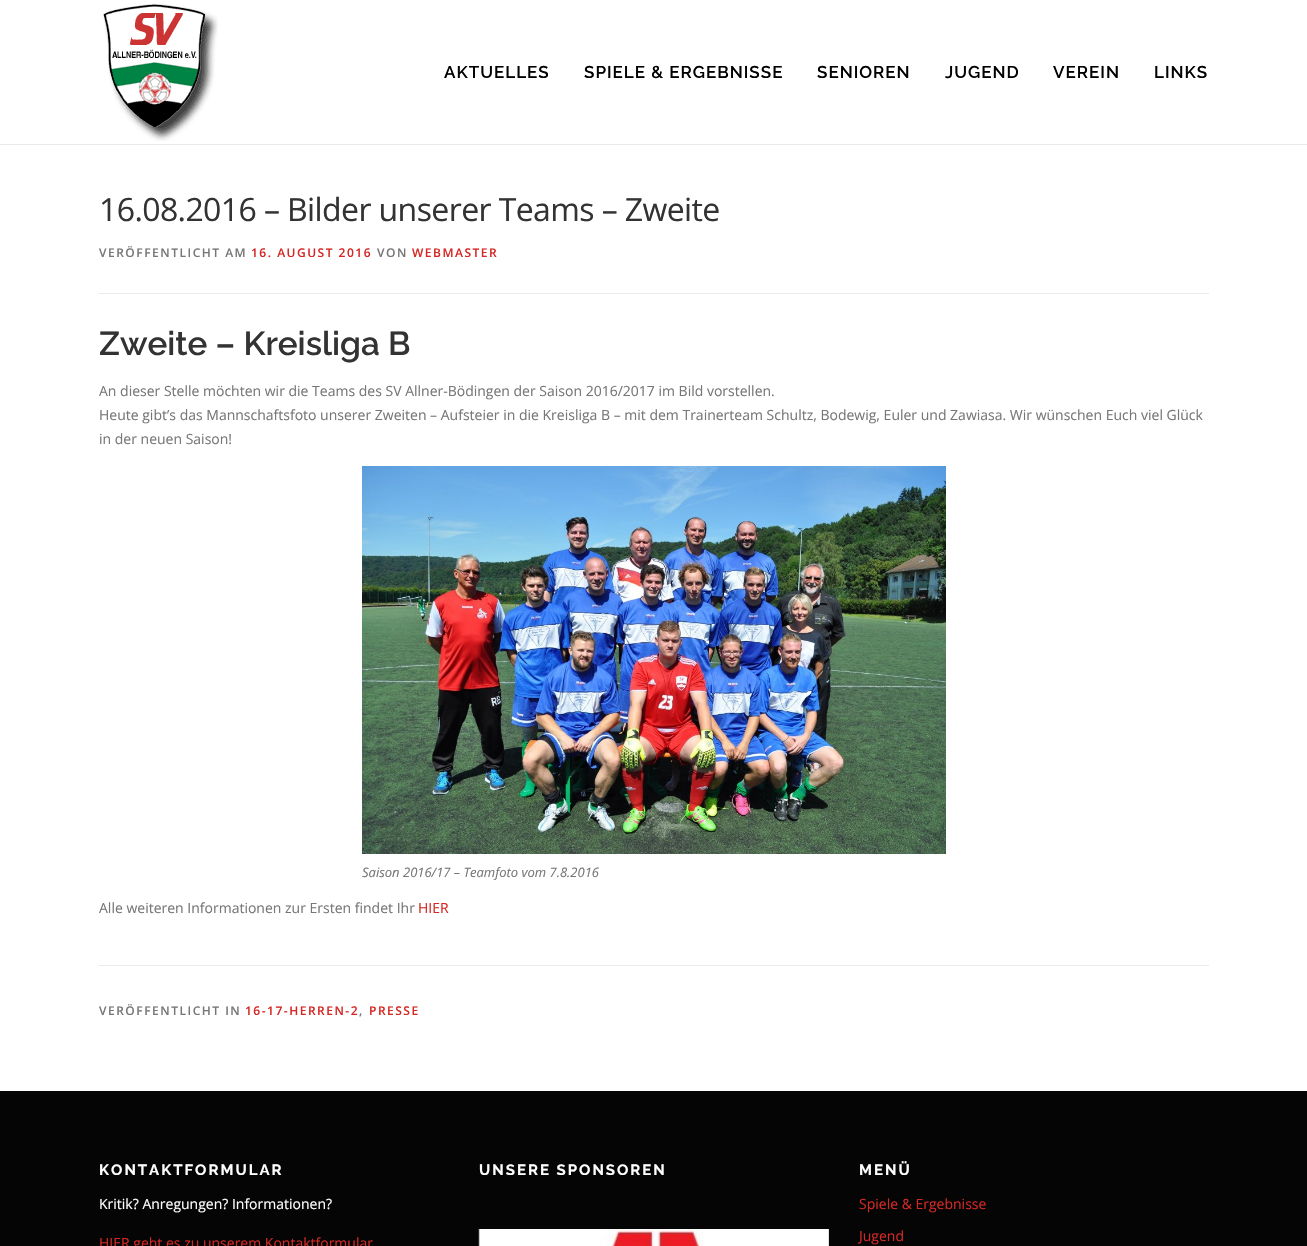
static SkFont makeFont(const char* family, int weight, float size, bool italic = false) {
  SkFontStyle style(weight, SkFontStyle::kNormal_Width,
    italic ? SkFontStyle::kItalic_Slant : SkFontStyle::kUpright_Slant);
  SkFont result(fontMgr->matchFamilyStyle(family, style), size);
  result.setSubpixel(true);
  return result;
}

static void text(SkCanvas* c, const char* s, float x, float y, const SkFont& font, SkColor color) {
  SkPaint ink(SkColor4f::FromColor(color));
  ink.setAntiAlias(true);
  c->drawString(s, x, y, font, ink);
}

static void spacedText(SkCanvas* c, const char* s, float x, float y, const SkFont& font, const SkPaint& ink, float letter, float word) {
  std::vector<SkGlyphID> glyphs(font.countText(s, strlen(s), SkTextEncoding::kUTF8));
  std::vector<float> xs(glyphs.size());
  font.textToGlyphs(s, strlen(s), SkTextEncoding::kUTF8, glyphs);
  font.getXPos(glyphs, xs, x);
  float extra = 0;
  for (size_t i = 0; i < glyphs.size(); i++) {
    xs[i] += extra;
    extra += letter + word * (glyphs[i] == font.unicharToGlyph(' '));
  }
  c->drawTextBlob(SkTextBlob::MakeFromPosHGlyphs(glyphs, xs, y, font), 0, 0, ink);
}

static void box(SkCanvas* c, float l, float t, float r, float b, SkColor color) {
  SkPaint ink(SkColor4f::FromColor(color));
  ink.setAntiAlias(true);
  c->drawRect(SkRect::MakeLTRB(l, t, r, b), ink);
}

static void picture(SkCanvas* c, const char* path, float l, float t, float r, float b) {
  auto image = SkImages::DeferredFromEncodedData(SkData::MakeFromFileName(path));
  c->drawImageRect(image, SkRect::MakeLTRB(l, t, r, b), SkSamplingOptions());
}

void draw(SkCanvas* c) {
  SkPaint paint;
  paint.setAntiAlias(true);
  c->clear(0xffffffff);
  picture(c, "img_01.png", 103, 4, 218, 141);
  SkFont face1 = makeFont("Raleway", 600, 17);
  paint.setColor(0xff000000);
  spacedText(c, "AKTUELLES", 444, 78, face1, paint, 1, 0);
  spacedText(c, "SPIELE & ERGEBNISSE", 584, 78, face1, paint, 1, 0);
  spacedText(c, "SENIOREN", 817, 78, face1, paint, 1, 0);
  spacedText(c, "JUGEND", 945, 78, face1, paint, 1, 0);
  spacedText(c, "VEREIN", 1053, 78, face1, paint, 1, 0);
  spacedText(c, "LINKS", 1154, 78, face1, paint, 1, 0);
  box(c, 0, 144, 1307, 145, 0xffe9e9e9);
  SkFont face2 = makeFont("Open Sans", 400, 32);
  paint.setColor(0xff333333);
  spacedText(c, "16.08.2016 – Bilder unserer Teams – Zweite", 99, 221, face2, paint, -0.6f, 0);
  box(c, 99, 293, 1209, 294, 0xffe9e9e9);
  SkFont face3 = makeFont("Open Sans", 600, 12);
  paint.setColor(0xff777777);
  spacedText(c, "VERÖFFENTLICHT AM", 99, 257, face3, paint, 1.5f, 0);
  paint.setColor(0xffd52824);
  spacedText(c, "16. AUGUST 2016", 251, 257, face3, paint, 1.5f, 0);
  paint.setColor(0xff777777);
  spacedText(c, "VON", 377, 257, face3, paint, 1.5f, 0);
  paint.setColor(0xffd52824);
  spacedText(c, "WEBMASTER", 412, 257, face3, paint, 1.5f, 0);
  SkFont face4 = makeFont("Raleway", 600, 33.25f);
  text(c, "Zweite – Kreisliga B", 99, 355, face4, 0xff333333);
  SkFont face5 = makeFont("Open Sans", 400, 14);
  text(c, "An dieser Stelle möchten wir die Teams des SV Allner-Bödingen der Saison 2016/2017 im Bild vorstellen.", 99, 396, face5, 0xff777777);
  text(c, "Heute gibt’s das Mannschaftsfoto unserer Zweiten – Aufsteier in die Kreisliga B – mit dem Trainerteam Schultz, Bodewig, Euler und Zawiasa. Wir wünschen Euch viel Glück", 99, 420, face5, 0xff777777);
  text(c, "in der neuen Saison!", 99, 444, face5, 0xff777777);
  picture(c, "img_02.png", 362, 466, 946, 854);
  SkFont face6 = makeFont("Open Sans", 400, 13, true);
  text(c, "Saison 2016/17 – Teamfoto vom 7.8.2016", 362, 877, face6, 0xff777777);
  text(c, "Alle weiteren Informationen zur Ersten findet Ihr", 99, 913, face5, 0xff777777);
  text(c, "HIER", 418, 913, face5, 0xffd52824);
  box(c, 99, 965, 1209, 966, 0xffe9e9e9);
  paint.setColor(0xff777777);
  spacedText(c, "VERÖFFENTLICHT IN", 99, 1015, face3, paint, 1.5f, 0);
  paint.setColor(0xffd52824);
  spacedText(c, "16-17-HERREN-2", 245, 1015, face3, paint, 1.5f, 0);
  paint.setColor(0xff777777);
  spacedText(c, ",", 359, 1015, face3, paint, 1.5f, 0);
  paint.setColor(0xffd52824);
  spacedText(c, "PRESSE", 369, 1015, face3, paint, 1.5f, 0);
  box(c, 0, 1091, 1307, 1246, 0xff050505);
  SkFont face7 = makeFont("Raleway", 700, 15);
  paint.setColor(0xffffffff);
  spacedText(c, "KONTAKTFORMULAR", 99, 1175, face7, paint, 2, 0);
  text(c, "Kritik? Anregungen? Informationen?", 99, 1209, face5, 0xffffffff);
  text(c, "HIER geht es zu unserem Kontaktformular", 99, 1248, face5, 0xffd52824);
  spacedText(c, "UNSERE SPONSOREN", 479, 1175, face7, paint, 2, 0);
  picture(c, "img_03.png", 478, 1229, 829, 1246);
  spacedText(c, "MENÜ", 859, 1175, face7, paint, 2, 0);
  text(c, "Spiele & Ergebnisse", 859, 1209, face5, 0xffd52824);
  text(c, "Jugend", 859, 1241, face5, 0xffd52824);
}
